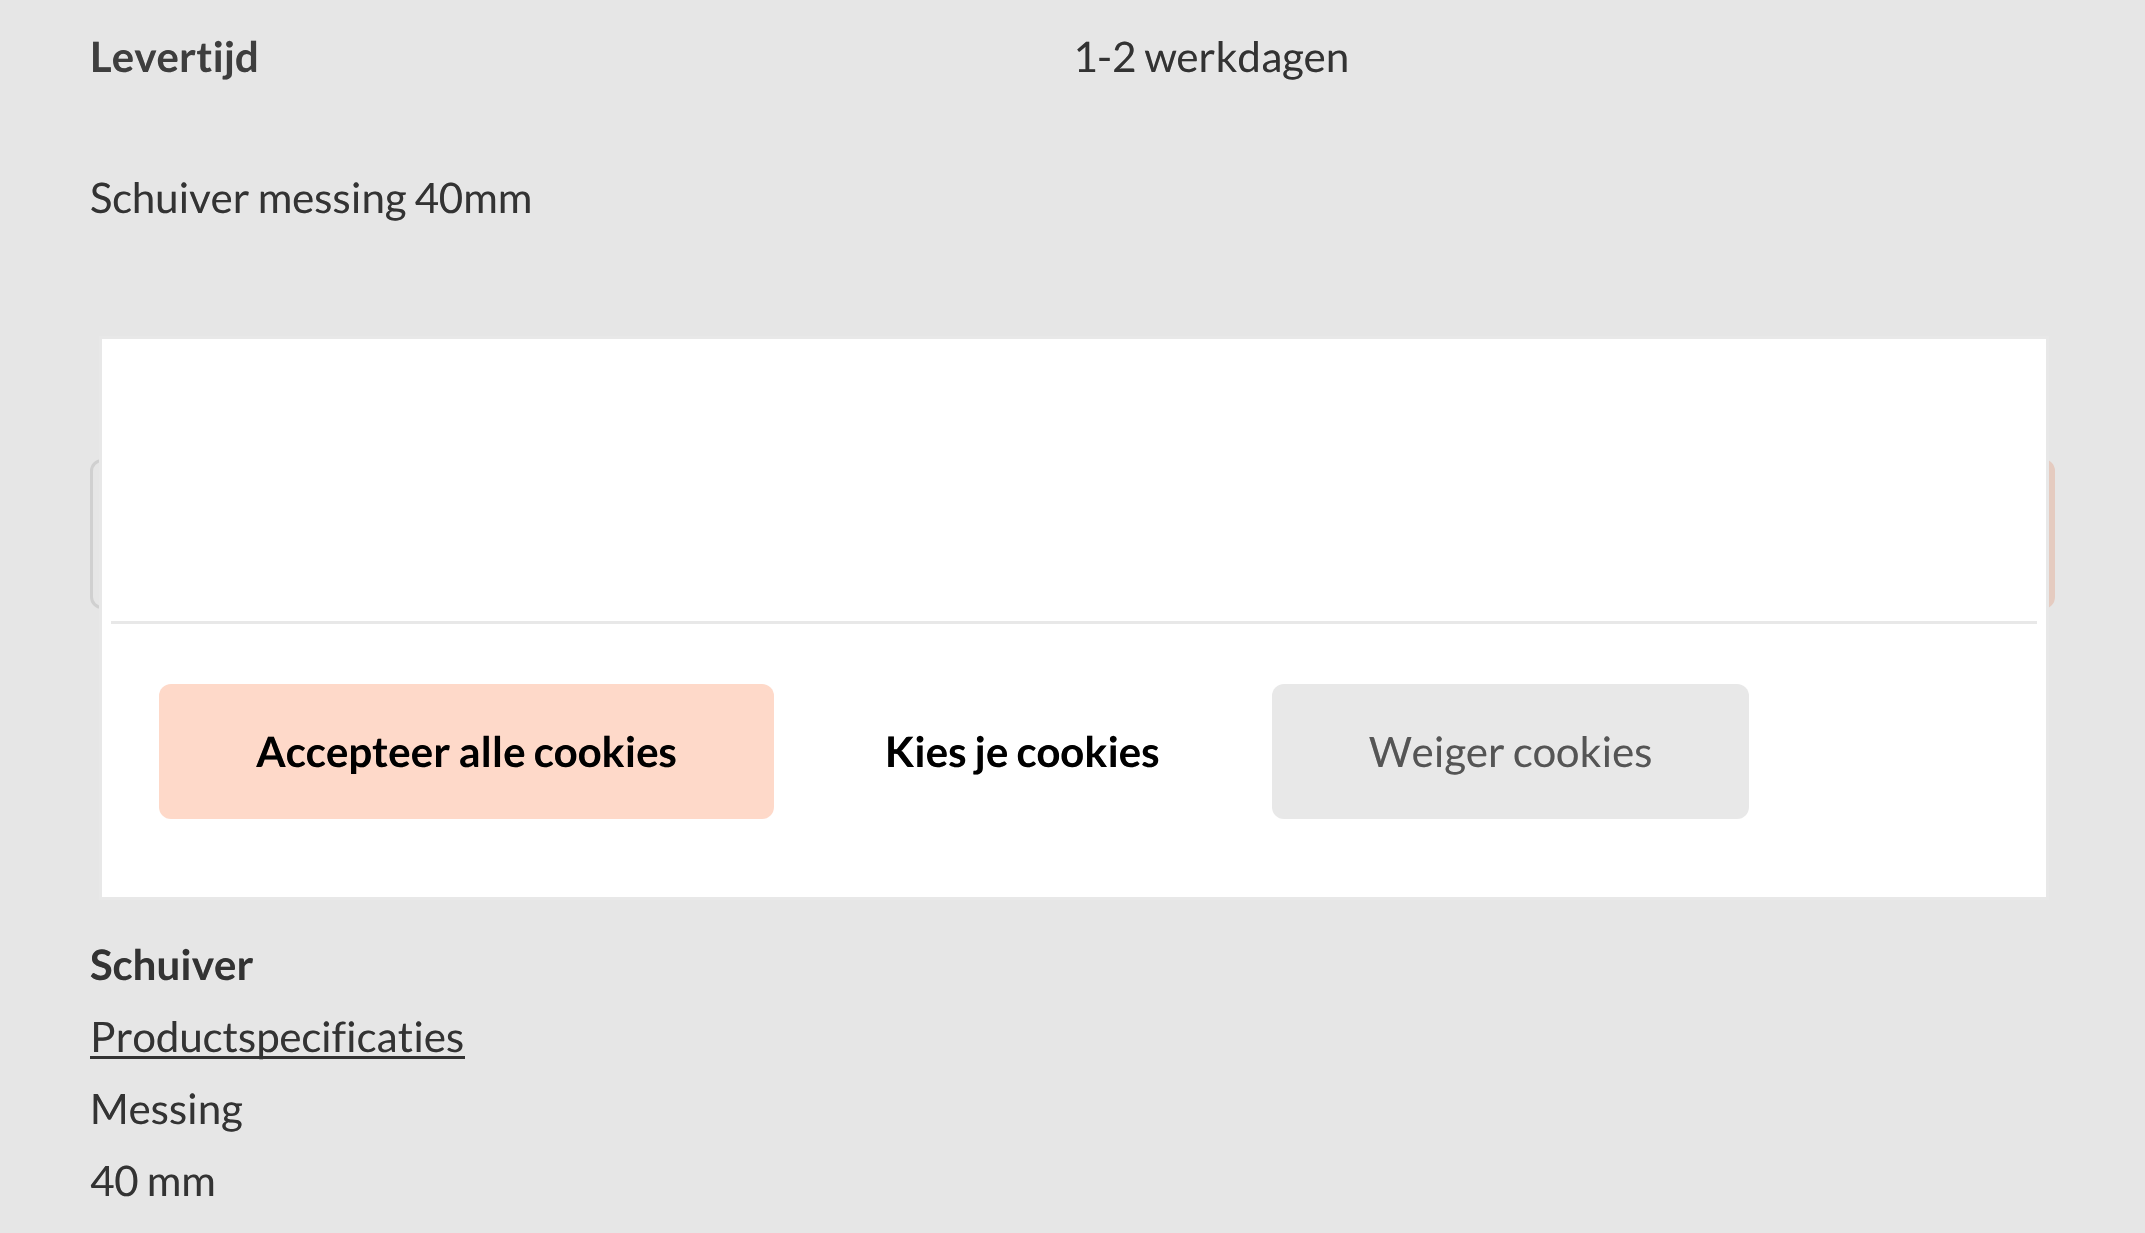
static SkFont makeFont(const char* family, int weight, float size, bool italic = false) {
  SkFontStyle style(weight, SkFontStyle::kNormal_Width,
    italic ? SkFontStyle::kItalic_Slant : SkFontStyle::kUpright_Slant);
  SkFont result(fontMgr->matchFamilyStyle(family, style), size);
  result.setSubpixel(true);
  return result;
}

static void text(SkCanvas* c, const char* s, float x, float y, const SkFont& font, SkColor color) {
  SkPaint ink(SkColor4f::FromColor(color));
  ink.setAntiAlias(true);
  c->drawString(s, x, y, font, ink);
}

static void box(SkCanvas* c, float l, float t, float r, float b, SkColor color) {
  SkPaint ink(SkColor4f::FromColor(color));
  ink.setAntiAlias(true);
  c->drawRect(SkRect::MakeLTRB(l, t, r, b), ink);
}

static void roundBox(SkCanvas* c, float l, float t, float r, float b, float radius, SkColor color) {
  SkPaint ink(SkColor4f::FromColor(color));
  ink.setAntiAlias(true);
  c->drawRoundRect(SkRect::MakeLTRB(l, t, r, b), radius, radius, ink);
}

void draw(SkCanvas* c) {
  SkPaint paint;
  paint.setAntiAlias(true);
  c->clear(0xffe6e6e6);
  SkFont face1 = makeFont("Lato", 700, 42);
  text(c, "Levertijd", 90, 72, face1, 0xff3e3e3e);
  SkFont face2 = makeFont("Lato", 400, 42);
  text(c, "1-2 werkdagen", 1073, 72, face2, 0xff333333);
  text(c, "Schuiver messing 40mm", 90, 213, face2, 0xff333333);
  paint.setStyle(SkPaint::kStroke_Style);
  paint.setStrokeWidth(3);
  paint.setColor(0xffd0d0d0);
  c->drawRoundRect(SkRect::MakeLTRB(91.5f, 460.5f, 316.5f, 607.5f), 10.5f, 10.5f, paint);
  paint.setStyle(SkPaint::kFill_Style);
  paint.setColor(0xffe5cbc0);
  c->drawRoundRect(SkRect::MakeLTRB(349.5f, 460.5f, 2053.5f, 607.5f), 10.5f, 10.5f, paint);
  paint.setStyle(SkPaint::kStroke_Style);
  c->drawRoundRect(SkRect::MakeLTRB(349.5f, 460.5f, 2053.5f, 607.5f), 10.5f, 10.5f, paint);
  text(c, "Schuiver", 90, 980, face1, 0xff333333);
  box(c, 90, 1056, 465, 1059, 0xff333333);
  text(c, "Productspecificaties", 90, 1052, face2, 0xff333333);
  text(c, "Messing", 90, 1124, face2, 0xff333333);
  text(c, "40 mm", 90, 1196, face2, 0xff333333);
  paint.setStyle(SkPaint::kFill_Style);
  paint.setColor(0xffffffff);
  c->drawRect(SkRect::MakeLTRB(100.5f, 337.5f, 2047.5f, 898.5f), paint);
  paint.setStyle(SkPaint::kStroke_Style);
  paint.setColor(0xffe8e8e8);
  c->drawRect(SkRect::MakeLTRB(100.5f, 337.5f, 2047.5f, 898.5f), paint);
  box(c, 111, 621, 2037, 624, 0xffe8e8e8);
  roundBox(c, 159, 684, 774, 819, 12, 0xfffed9c9);
  text(c, "Accepteer alle cookies", 256, 767, face1, 0xff000000);
  text(c, "Kies je cookies", 885, 767, face1, 0xff000000);
  roundBox(c, 1272, 684, 1749, 819, 12, 0xffe8e8e8);
  text(c, "Weiger cookies", 1369, 767, face2, 0xff555555);
}
